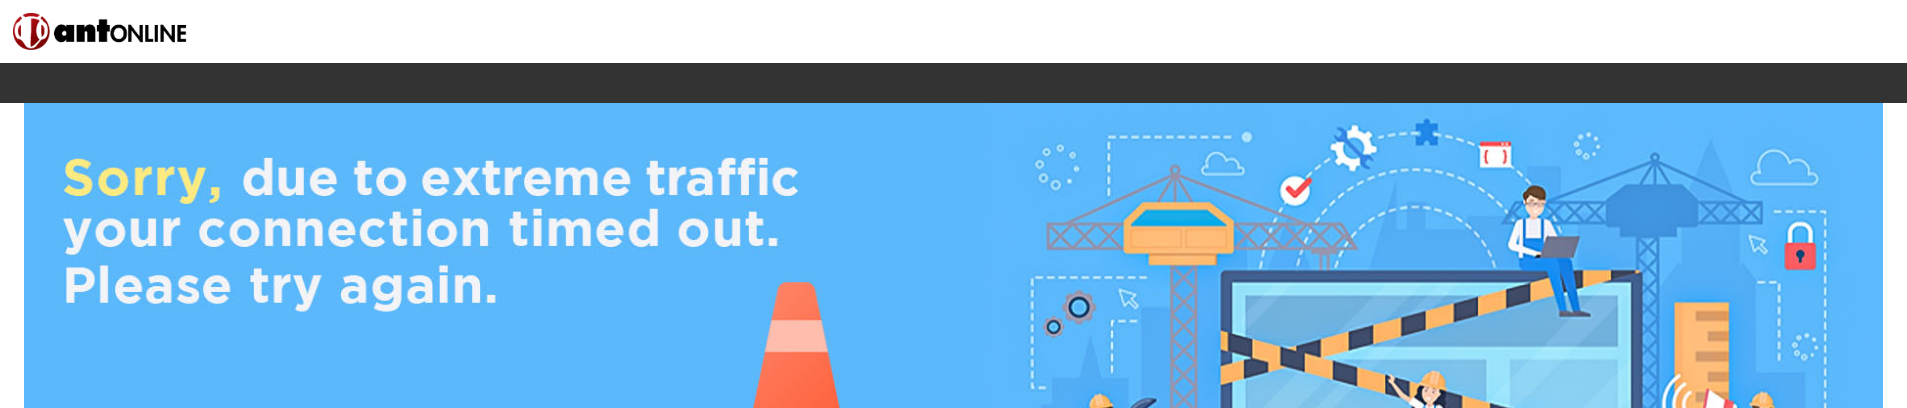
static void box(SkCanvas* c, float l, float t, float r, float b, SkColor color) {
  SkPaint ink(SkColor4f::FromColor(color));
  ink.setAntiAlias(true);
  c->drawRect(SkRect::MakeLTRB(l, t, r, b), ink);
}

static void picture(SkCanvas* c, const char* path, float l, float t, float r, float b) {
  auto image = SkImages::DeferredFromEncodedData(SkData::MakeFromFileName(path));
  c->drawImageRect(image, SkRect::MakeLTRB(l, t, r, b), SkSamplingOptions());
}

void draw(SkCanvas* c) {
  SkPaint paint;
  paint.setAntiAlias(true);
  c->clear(0xffffffff);
  picture(c, "img_01.png", 13, 13, 187, 50);
  box(c, 0, 63, 1907, 103, 0xff333333);
  picture(c, "img_02.png", 24, 103, 1883, 408);
}
